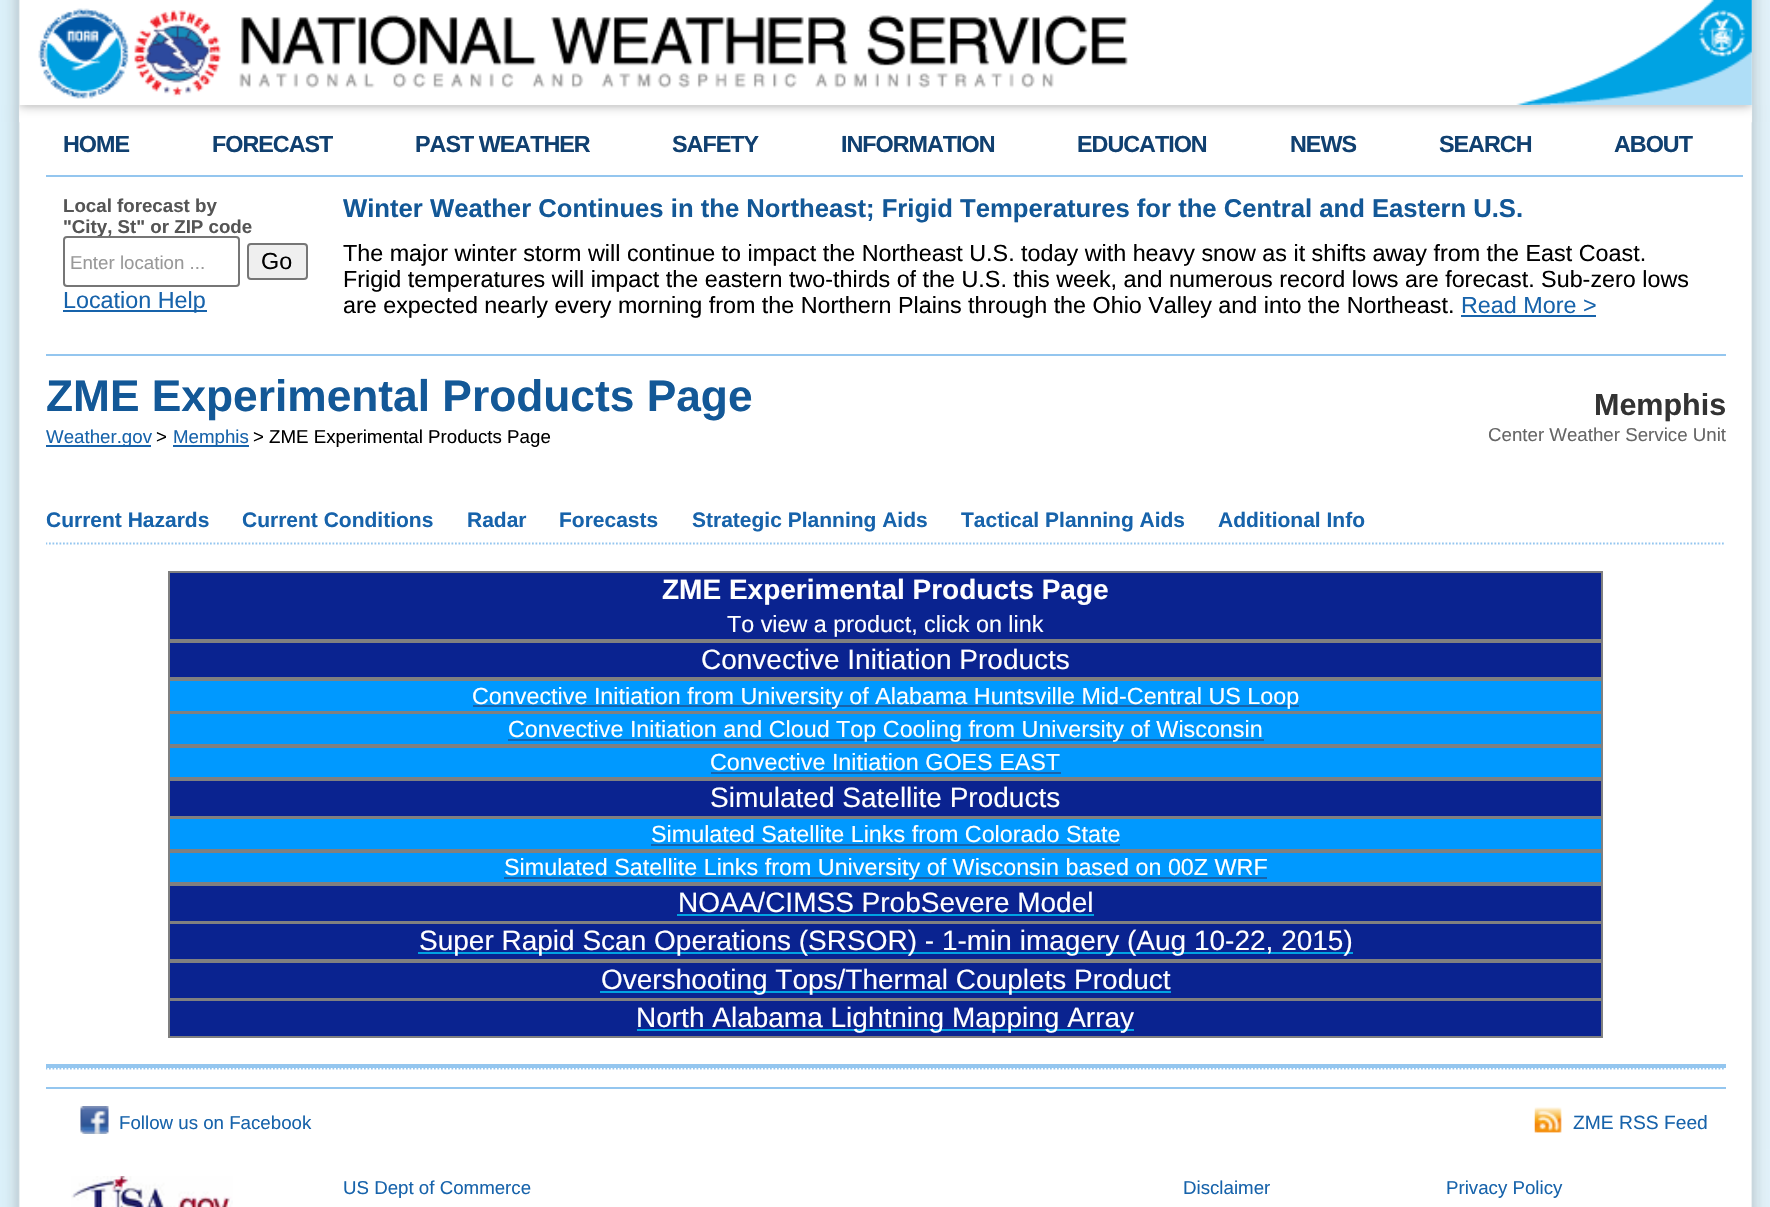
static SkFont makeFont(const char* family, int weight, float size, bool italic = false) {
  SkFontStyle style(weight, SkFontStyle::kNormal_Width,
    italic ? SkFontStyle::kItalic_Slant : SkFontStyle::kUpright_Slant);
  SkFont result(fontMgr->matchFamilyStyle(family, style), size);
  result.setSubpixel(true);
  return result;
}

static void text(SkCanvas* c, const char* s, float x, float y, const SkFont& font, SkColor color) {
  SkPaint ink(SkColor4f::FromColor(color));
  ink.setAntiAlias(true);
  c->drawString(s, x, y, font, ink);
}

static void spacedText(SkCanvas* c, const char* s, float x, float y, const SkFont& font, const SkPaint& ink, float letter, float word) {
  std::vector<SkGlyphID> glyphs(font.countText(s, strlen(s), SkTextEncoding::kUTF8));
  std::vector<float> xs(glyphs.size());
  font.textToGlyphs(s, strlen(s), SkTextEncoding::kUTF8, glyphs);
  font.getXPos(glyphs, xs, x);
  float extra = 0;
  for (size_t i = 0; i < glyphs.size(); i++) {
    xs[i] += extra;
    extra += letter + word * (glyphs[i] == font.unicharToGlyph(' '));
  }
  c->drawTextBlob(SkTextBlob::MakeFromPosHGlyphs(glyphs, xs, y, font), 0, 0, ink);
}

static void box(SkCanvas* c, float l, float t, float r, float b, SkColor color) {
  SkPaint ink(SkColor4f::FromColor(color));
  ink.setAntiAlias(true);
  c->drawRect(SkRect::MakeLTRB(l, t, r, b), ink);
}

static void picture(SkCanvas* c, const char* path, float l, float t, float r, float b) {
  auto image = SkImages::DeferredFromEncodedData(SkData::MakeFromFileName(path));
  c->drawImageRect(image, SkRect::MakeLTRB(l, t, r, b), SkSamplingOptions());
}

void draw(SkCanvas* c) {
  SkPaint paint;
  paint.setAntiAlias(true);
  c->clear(0xffffffff);
  picture(c, "img_01.png", 0, 122, 1770, 1150);
  picture(c, "img_02.png", 0, 0, 1770, 105);
  picture(c, "img_03.png", 38, 8, 1128, 99);
  picture(c, "img_04.png", 1516, 0, 1752, 105);
  picture(c, "img_05.png", 0, 105, 1770, 123);
  picture(c, "img_06.png", 19, 105, 1752, 123);
  picture(c, "img_07.png", 0, 122, 1770, 1150);
  box(c, 46, 175, 1743, 177, 0xff94c6ef);
  SkFont face1 = makeFont("Liberation Sans", 700, 23.33f);
  paint.setColor(0xff104070);
  spacedText(c, "HOME", 63, 152, face1, paint, -1, 0);
  spacedText(c, "FORECAST", 212, 152, face1, paint, -1, 0);
  spacedText(c, "PAST WEATHER", 415, 152, face1, paint, -1, 0);
  spacedText(c, "SAFETY", 672, 152, face1, paint, -1, 0);
  spacedText(c, "INFORMATION", 841, 152, face1, paint, -1, 0);
  spacedText(c, "EDUCATION", 1077, 152, face1, paint, -1, 0);
  spacedText(c, "NEWS", 1290, 152, face1, paint, -1, 0);
  spacedText(c, "SEARCH", 1439, 152, face1, paint, -1, 0);
  spacedText(c, "ABOUT", 1614, 152, face1, paint, -1, 0);
  SkFont face2 = makeFont("Liberation Sans", 700, 18.7f);
  text(c, "Local forecast by", 63, 212, face2, 0xff555555);
  text(c, "\"City, St\" or ZIP code", 63, 233, face2, 0xff555555);
  paint.setColor(0xffffffff);
  c->drawRoundRect(SkRect::MakeLTRB(64, 237, 239, 286), 3, 3, paint);
  paint.setStyle(SkPaint::kStroke_Style);
  paint.setStrokeWidth(2);
  paint.setColor(0xff767676);
  c->drawRoundRect(SkRect::MakeLTRB(64, 237, 239, 286), 3, 3, paint);
  SkFont face3 = makeFont("Liberation Sans", 400, 18.7f);
  text(c, "Enter location ...", 70, 269, face3, 0xff999999);
  paint.setStyle(SkPaint::kFill_Style);
  paint.setColor(0xffefefef);
  c->drawRoundRect(SkRect::MakeLTRB(248, 244, 307, 279), 3, 3, paint);
  paint.setStyle(SkPaint::kStroke_Style);
  paint.setColor(0xff767676);
  c->drawRoundRect(SkRect::MakeLTRB(248, 244, 307, 279), 3, 3, paint);
  SkFont face4 = makeFont("Liberation Sans", 400, 23.33f);
  text(c, "Go", 261, 269, face4, 0xff000000);
  box(c, 63, 310, 207, 312, 0xff1763ab);
  text(c, "Location Help", 63, 308, face4, 0xff1763ab);
  SkFont face5 = makeFont("Liberation Sans", 700, 25.65f);
  text(c, "Winter Weather Continues in the Northeast; Frigid Temperatures for the Central and Eastern U.S.", 343, 217, face5, 0xff135897);
  text(c, "The major winter storm will continue to impact the Northeast U.S. today with heavy snow as it shifts away from the East Coast.", 343, 261, face4, 0xff000000);
  text(c, "Frigid temperatures will impact the eastern two-thirds of the U.S. this week, and numerous record lows are forecast. Sub-zero lows", 343, 287, face4, 0xff000000);
  text(c, "are expected nearly every morning from the Northern Plains through the Ohio Valley and into the Northeast.", 343, 313, face4, 0xff000000);
  text(c, "Read More >", 1461, 313, face4, 0xff1763ab);
  box(c, 1461, 315, 1596, 317, 0xff1763ab);
  box(c, 46, 354, 1726, 356, 0xff94c6ef);
  box(c, 46, 1064, 1726, 1068, 0xff94c6ef);
  SkFont face6 = makeFont("Liberation Sans", 700, 44.3f);
  text(c, "ZME Experimental Products Page", 46, 411, face6, 0xff135897);
  box(c, 46, 445, 151, 447, 0xff1763ab);
  text(c, "Weather.gov", 46, 443, face3, 0xff1763ab);
  text(c, ">", 156, 443, face3, 0xff000000);
  box(c, 173, 445, 249, 447, 0xff1763ab);
  text(c, "Memphis", 173, 443, face3, 0xff1763ab);
  text(c, "> ZME Experimental Products Page", 253, 443, face3, 0xff000000);
  SkFont face7 = makeFont("Liberation Sans", 700, 30.5f);
  text(c, "Memphis", 1594, 415, face7, 0xff333333);
  text(c, "Center Weather Service Unit", 1488, 441, face3, 0xff666666);
  c->save();
  c->clipRect(SkRect::MakeLTRB(46, 194, 1726, 1150));
  paint.setStrokeWidth(1.8f);
  paint.setColor(0xff94c6ef);
  paint.setPathEffect(SkDashPathEffect::Make({{1.75f, 1.75f}}, 0));
  c->drawPath(SkPathBuilder().moveTo(45.5f, 543.5f).lineTo(1725.5f, 543.5f).detach(), paint);
  paint.setPathEffect(nullptr);
  c->restore();
  SkFont face8 = makeFont("Liberation Sans", 700, 21);
  text(c, "Current Hazards", 46, 527, face8, 0xff1763ab);
  text(c, "Current Conditions", 242, 527, face8, 0xff1763ab);
  text(c, "Radar", 467, 527, face8, 0xff1763ab);
  text(c, "Forecasts", 559, 527, face8, 0xff1763ab);
  text(c, "Strategic Planning Aids", 692, 527, face8, 0xff1763ab);
  text(c, "Tactical Planning Aids", 961, 527, face8, 0xff1763ab);
  text(c, "Additional Info", 1218, 527, face8, 0xff1763ab);
  box(c, 170, 573, 1601, 639, 0xff0a2390);
  box(c, 168, 571, 1603, 573, 0xff808080);
  box(c, 1601, 571, 1603, 641, 0xff808080);
  box(c, 168, 639, 1603, 643, 0xff808080);
  box(c, 168, 571, 170, 641, 0xff808080);
  SkFont face9 = makeFont("Liberation Sans", 700, 28);
  text(c, "ZME Experimental Products Page", 662, 599, face9, 0xffffffff);
  text(c, "To view a product, click on link", 727, 632, face4, 0xffffffff);
  box(c, 170, 643, 1601, 677, 0xff0a2390);
  box(c, 1601, 641, 1603, 679, 0xff808080);
  box(c, 168, 677, 1603, 681, 0xff808080);
  box(c, 168, 641, 170, 679, 0xff808080);
  SkFont face10 = makeFont("Liberation Sans", 400, 28);
  text(c, "Convective Initiation Products", 701, 669, face10, 0xffffffff);
  box(c, 170, 681, 1601, 711, 0xff0099ff);
  box(c, 1601, 679, 1603, 712, 0xff808080);
  box(c, 168, 711, 1603, 714, 0xff808080);
  box(c, 168, 679, 170, 712, 0xff808080);
  box(c, 473, 705, 1299, 707, 0xff1763ab);
  text(c, "Convective Initiation from University of Alabama Huntsville Mid-Central US Loop", 472, 704, face4, 0xffffffff);
  box(c, 170, 714, 1601, 744, 0xff0099ff);
  box(c, 1601, 712, 1603, 746, 0xff808080);
  box(c, 168, 744, 1603, 748, 0xff808080);
  box(c, 168, 712, 170, 746, 0xff808080);
  box(c, 508, 739, 1264, 741, 0xff1763ab);
  text(c, "Convective Initiation and Cloud Top Cooling from University of Wisconsin", 508, 737, face4, 0xffffffff);
  box(c, 170, 748, 1601, 777, 0xff0099ff);
  box(c, 1601, 746, 1603, 779, 0xff808080);
  box(c, 168, 777, 1603, 781, 0xff808080);
  box(c, 168, 746, 170, 779, 0xff808080);
  text(c, "Convective Initiation GOES EAST", 710, 770, face4, 0xffffffff);
  box(c, 711, 772, 1061, 774, 0xff1763ab);
  box(c, 170, 781, 1601, 816, 0xff0a2390);
  box(c, 1601, 779, 1603, 817, 0xff808080);
  box(c, 168, 816, 1603, 819, 0xff808080);
  box(c, 168, 779, 170, 817, 0xff808080);
  text(c, "Simulated Satellite Products", 710, 807, face10, 0xffffffff);
  box(c, 170, 819, 1601, 849, 0xff0099ff);
  box(c, 1601, 817, 1603, 851, 0xff808080);
  box(c, 168, 849, 1603, 853, 0xff808080);
  box(c, 168, 817, 170, 851, 0xff808080);
  text(c, "Simulated Satellite Links from Colorado State", 651, 842, face4, 0xffffffff);
  box(c, 651, 844, 1120, 846, 0xff1763ab);
  box(c, 170, 853, 1601, 882, 0xff0099ff);
  box(c, 1601, 851, 1603, 884, 0xff808080);
  box(c, 168, 882, 1603, 886, 0xff808080);
  box(c, 168, 851, 170, 884, 0xff808080);
  box(c, 504, 877, 1267, 879, 0xff1763ab);
  text(c, "Simulated Satellite Links from University of Wisconsin based on 00Z WRF", 504, 875, face4, 0xffffffff);
  box(c, 170, 886, 1601, 921, 0xff0a2390);
  box(c, 1601, 884, 1603, 922, 0xff808080);
  box(c, 168, 921, 1603, 924, 0xff808080);
  box(c, 168, 884, 170, 922, 0xff808080);
  text(c, "NOAA/CIMSS ProbSevere Model", 678, 912, face10, 0xffffffff);
  box(c, 677, 914, 1094, 916, 0xff00a3e3);
  box(c, 170, 924, 1601, 959, 0xff0a2390);
  box(c, 1601, 922, 1603, 961, 0xff808080);
  box(c, 168, 959, 1603, 963, 0xff808080);
  box(c, 168, 922, 170, 961, 0xff808080);
  box(c, 418, 952, 1353, 954, 0xff00a3e3);
  text(c, "Super Rapid Scan Operations (SRSOR) - 1-min imagery (Aug 10-22, 2015)", 419, 950, face10, 0xffffffff);
  box(c, 170, 963, 1601, 998, 0xff0a2390);
  box(c, 1601, 961, 1603, 999, 0xff808080);
  box(c, 168, 998, 1603, 1001, 0xff808080);
  box(c, 168, 961, 170, 999, 0xff808080);
  box(c, 600, 991, 1171, 993, 0xff00a3e3);
  text(c, "Overshooting Tops/Thermal Couplets Product", 601, 989, face10, 0xffffffff);
  box(c, 170, 1001, 1601, 1036, 0xff0a2390);
  box(c, 1601, 999, 1603, 1038, 0xff808080);
  box(c, 168, 1036, 1603, 1038, 0xff808080);
  box(c, 168, 999, 170, 1038, 0xff808080);
  box(c, 637, 1029, 1134, 1031, 0xff00a3e3);
  text(c, "North Alabama Lightning Mapping Array", 636, 1027, face10, 0xffffffff);
  c->save();
  c->clipRect(SkRect::MakeLTRB(46, 194, 1726, 1150));
  paint.setPathEffect(SkDashPathEffect::Make({{1.75f, 1.75f}}, 0));
  c->drawPath(SkPathBuilder().moveTo(45.5f, 1068.5f).lineTo(1725.5f, 1068.5f).detach(), paint);
  paint.setPathEffect(nullptr);
  c->restore();
  box(c, 46, 1087, 1726, 1089, 0xff94c6ef);
  picture(c, "img_08.png", 80, 1106, 109, 1134);
  text(c, "Follow us on Facebook", 119, 1129, face3, 0xff1763ab);
  picture(c, "img_09.png", 1534, 1107, 1562, 1133);
  SkFont face11 = makeFont("Liberation Sans", 400, 19.25f);
  text(c, "ZME RSS Feed", 1573, 1129, face11, 0xff1763ab);
  picture(c, "img_10.png", 0, 1150, 1770, 1207);
  picture(c, "img_11.png", 71, 1176, 233, 1207);
  text(c, "US Dept of Commerce", 343, 1194, face3, 0xff1763ab);
  text(c, "Disclaimer", 1183, 1194, face3, 0xff1763ab);
  text(c, "Privacy Policy", 1446, 1194, face3, 0xff1763ab);
}
